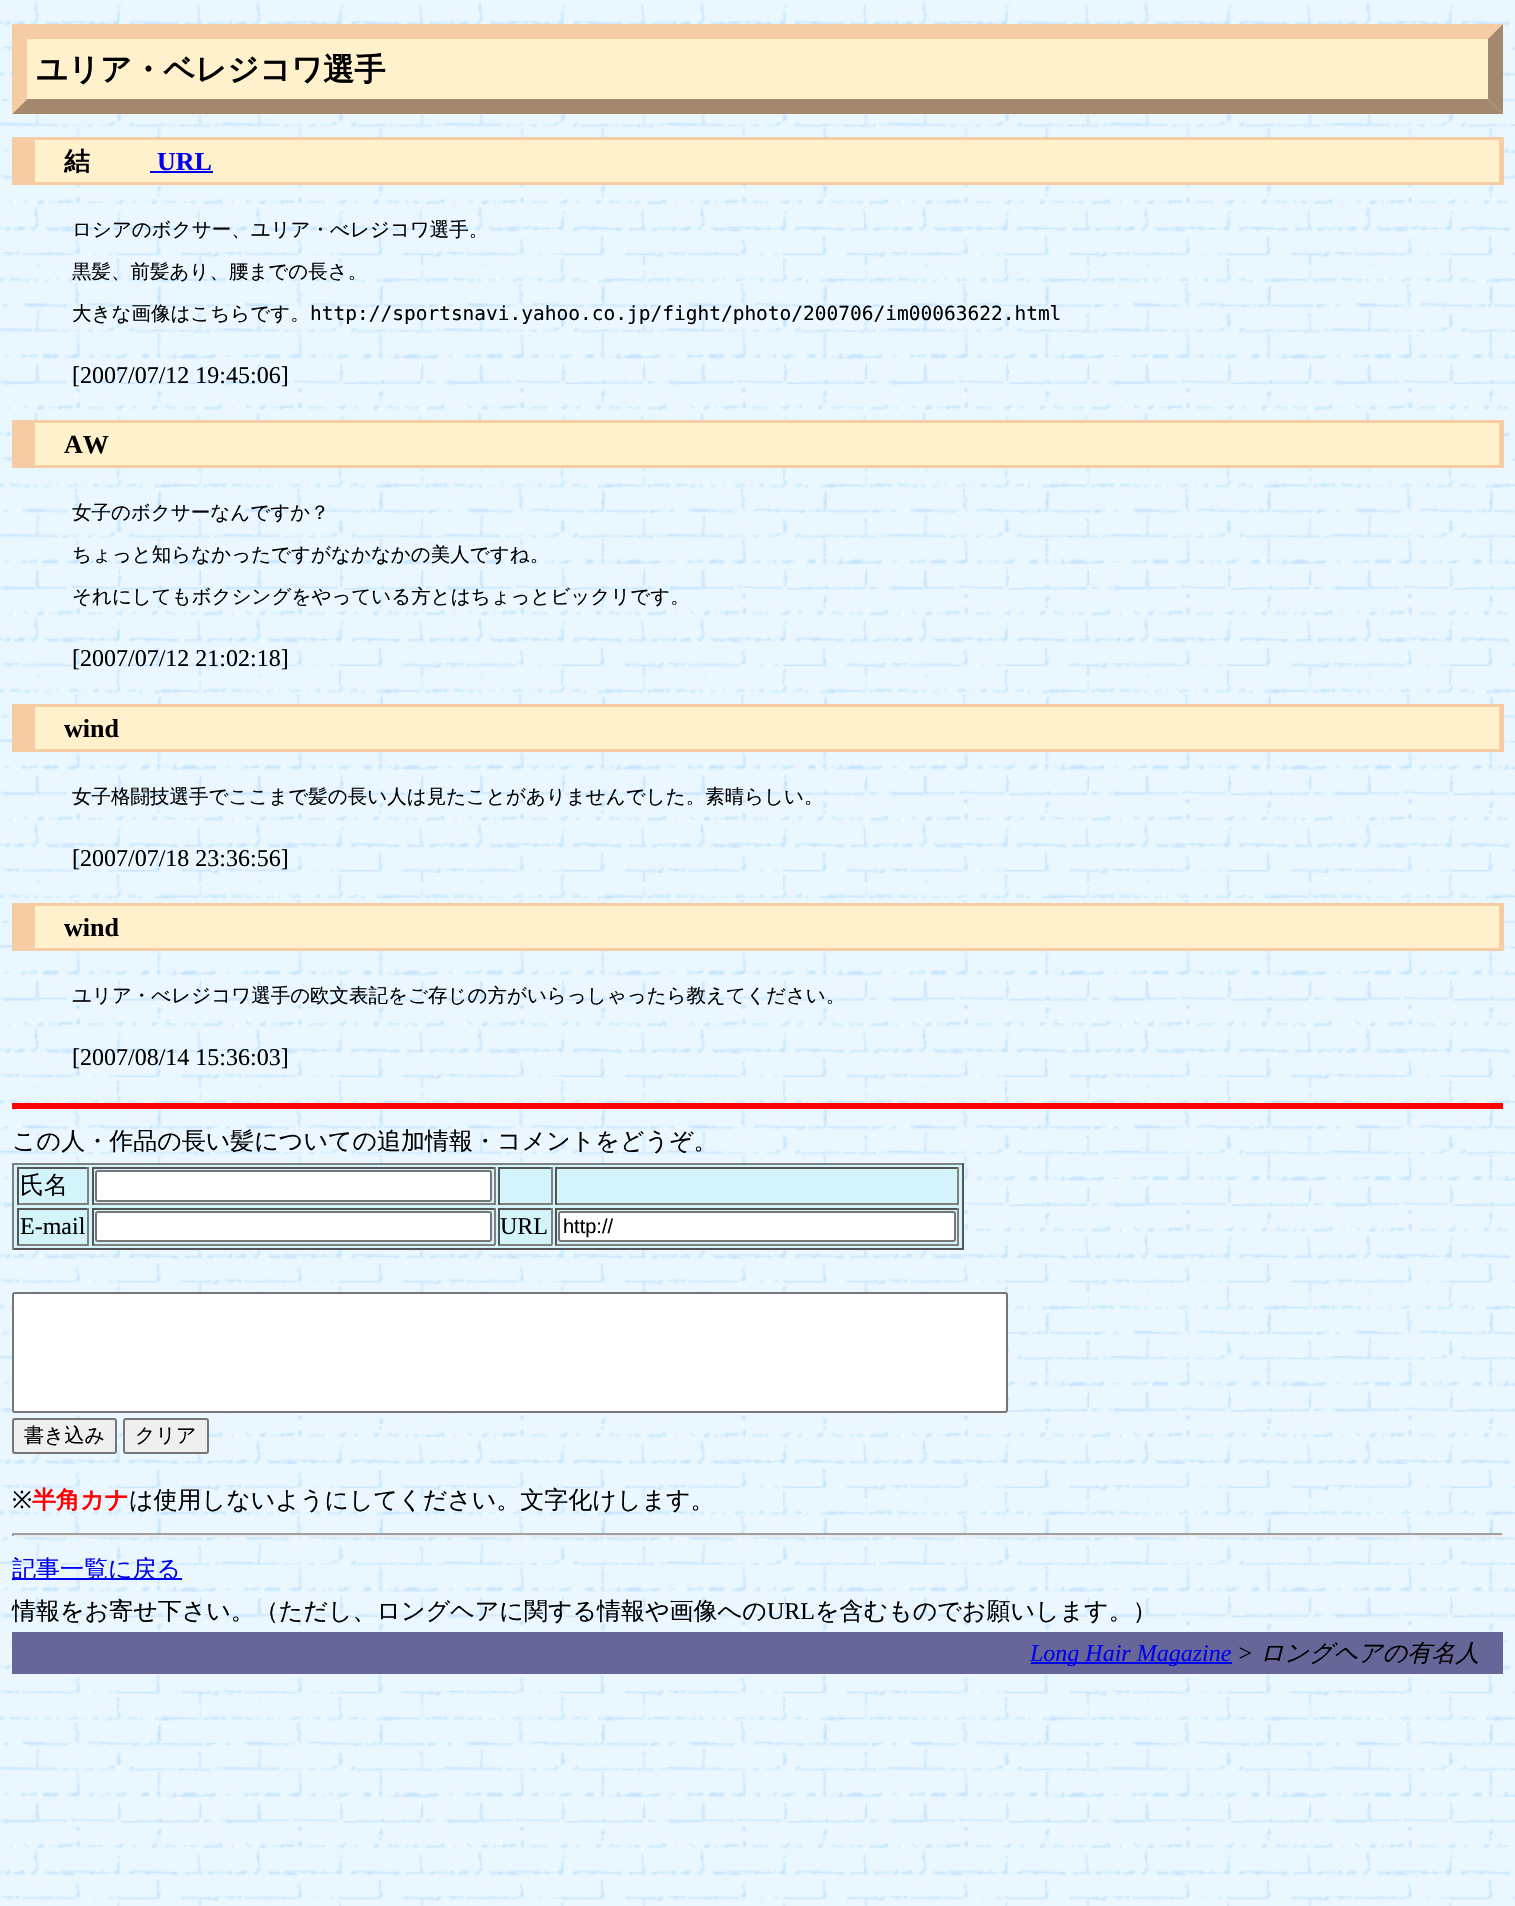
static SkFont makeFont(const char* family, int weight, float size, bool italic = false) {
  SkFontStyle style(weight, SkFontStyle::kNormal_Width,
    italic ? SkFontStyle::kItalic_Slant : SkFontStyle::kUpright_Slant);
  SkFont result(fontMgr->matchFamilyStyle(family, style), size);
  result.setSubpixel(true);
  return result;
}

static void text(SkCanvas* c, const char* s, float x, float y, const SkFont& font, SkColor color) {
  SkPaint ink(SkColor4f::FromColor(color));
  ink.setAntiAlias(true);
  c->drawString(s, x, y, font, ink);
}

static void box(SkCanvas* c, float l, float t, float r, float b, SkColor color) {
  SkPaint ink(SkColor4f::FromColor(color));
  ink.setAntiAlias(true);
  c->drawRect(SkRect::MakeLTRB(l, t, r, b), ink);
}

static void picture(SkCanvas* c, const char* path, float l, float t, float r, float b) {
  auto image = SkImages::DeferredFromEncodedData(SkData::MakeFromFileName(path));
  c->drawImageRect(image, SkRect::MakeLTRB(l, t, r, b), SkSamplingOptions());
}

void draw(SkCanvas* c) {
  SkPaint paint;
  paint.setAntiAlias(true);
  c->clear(0xffffffff);
  picture(c, "img_01.png", 0, 0, 1515, 1906);
  box(c, 12, 24, 1503, 114, 0xfffff1cc);
  paint.setColor(0xfff5cca3);
  c->drawPath(SkPathBuilder().moveTo(12, 24).lineTo(1503, 24).lineTo(1488, 39).lineTo(27, 39).close().detach(), paint);
  paint.setColor(0xffa3886d);
  c->drawPath(SkPathBuilder().moveTo(1503, 24).lineTo(1503, 114).lineTo(1488, 99).lineTo(1488, 39).close().detach(), paint);
  c->drawPath(SkPathBuilder().moveTo(1503, 114).lineTo(12, 114).lineTo(27, 99).lineTo(1488, 99).close().detach(), paint);
  paint.setColor(0xfff5cca3);
  c->drawPath(SkPathBuilder().moveTo(12, 114).lineTo(12, 24).lineTo(27, 39).lineTo(27, 99).close().detach(), paint);
  SkFont face1 = makeFont("WenQuanYi Zen Hei", 700, 31.25f);
  text(c, "ユリア・ベレジコワ選手", 36, 80, face1, 0xff000000);
  box(c, 35, 140, 1499, 182, 0xfffff1cc);
  box(c, 35, 137, 1503, 140, 0xfff5cca3);
  box(c, 1499, 137, 1504, 185, 0xfff5cca3);
  box(c, 35, 182, 1503, 185, 0xfff5cca3);
  box(c, 12, 137, 35, 185, 0xfff5cca3);
  SkFont face2 = makeFont("WenQuanYi Zen Hei", 700, 26);
  text(c, "結", 64, 170, face2, 0xff000000);
  SkFont face3 = makeFont("Liberation Serif", 700, 26);
  text(c, "URL", 157, 170, face3, 0xff0000ee);
  box(c, 150, 171, 213, 173, 0xff0000ee);
  SkFont face4 = makeFont("WenQuanYi Zen Hei", 500, 19.5f);
  text(c, "ロシアのボクサー、ユリア・べレジコワ選手。", 72, 236, face4, 0xff000000);
  text(c, "黒髪、前髪あり、腰までの長さ。", 72, 278, face4, 0xff000000);
  text(c, "大きな画像はこちらです。", 72, 320, face4, 0xff000000);
  SkFont face5 = makeFont("DejaVu Sans Mono", 400, 19.5f);
  text(c, "http://sportsnavi.yahoo.co.jp/fight/photo/200706/im00063622.html", 310, 320, face5, 0xff000000);
  SkFont face6 = makeFont("Liberation Serif", 400, 24);
  text(c, "[2007/07/12 19:45:06]", 72, 383, face6, 0xff000000);
  box(c, 35, 423, 1499, 465, 0xfffff1cc);
  box(c, 35, 420, 1503, 423, 0xfff5cca3);
  box(c, 1499, 420, 1504, 468, 0xfff5cca3);
  box(c, 35, 465, 1503, 468, 0xfff5cca3);
  box(c, 12, 420, 35, 468, 0xfff5cca3);
  text(c, "AW", 64, 453, face3, 0xff000000);
  text(c, "女子のボクサーなんですか？", 72, 519, face4, 0xff000000);
  text(c, "ちょっと知らなかったですがなかなかの美人ですね。", 72, 561, face4, 0xff000000);
  text(c, "それにしてもボクシングをやっている方とはちょっとビックリです。", 72, 603, face4, 0xff000000);
  text(c, "[2007/07/12 21:02:18]", 72, 666, face6, 0xff000000);
  box(c, 35, 707, 1499, 749, 0xfffff1cc);
  box(c, 35, 704, 1503, 707, 0xfff5cca3);
  box(c, 1499, 704, 1504, 752, 0xfff5cca3);
  box(c, 35, 749, 1503, 752, 0xfff5cca3);
  box(c, 12, 704, 35, 752, 0xfff5cca3);
  text(c, "wind", 64, 737, face3, 0xff000000);
  text(c, "女子格闘技選手でここまで髪の長い人は見たことがありませんでした。素晴らしい。", 72, 803, face4, 0xff000000);
  text(c, "[2007/07/18 23:36:56]", 72, 866, face6, 0xff000000);
  box(c, 35, 906, 1499, 948, 0xfffff1cc);
  box(c, 35, 903, 1503, 906, 0xfff5cca3);
  box(c, 1499, 903, 1504, 951, 0xfff5cca3);
  box(c, 35, 948, 1503, 951, 0xfff5cca3);
  box(c, 12, 903, 35, 951, 0xfff5cca3);
  text(c, "wind", 64, 936, face3, 0xff000000);
  text(c, "ユリア・べレジコワ選手の欧文表記をご存じの方がいらっしゃったら教えてください。", 72, 1002, face4, 0xff000000);
  text(c, "[2007/08/14 15:36:03]", 72, 1065, face6, 0xff000000);
  box(c, 12, 1103, 1503, 1109, 0xffff0000);
  SkFont face7 = makeFont("WenQuanYi Zen Hei", 500, 24);
  text(c, "この人・作品の長い髪についての追加情報・コメントをどうぞ。", 12, 1149, face7, 0xff000000);
  box(c, 14, 1165, 962, 1248, 0xffd2f4fa);
  box(c, 12, 1163, 963, 1165, 0xff808080);
  box(c, 962, 1163, 964, 1250, 0xff555555);
  box(c, 12, 1248, 963, 1250, 0xff555555);
  box(c, 12, 1163, 14, 1250, 0xff808080);
  box(c, 17, 1167, 89, 1169, 0xff555555);
  box(c, 87, 1167, 89, 1205, 0xff808080);
  box(c, 17, 1203, 89, 1205, 0xff808080);
  box(c, 17, 1167, 19, 1205, 0xff555555);
  text(c, "氏名", 20, 1193, face7, 0xff000000);
  box(c, 92, 1167, 495, 1169, 0xff555555);
  box(c, 494, 1167, 496, 1205, 0xff808080);
  box(c, 92, 1203, 495, 1205, 0xff808080);
  box(c, 92, 1167, 94, 1205, 0xff555555);
  paint.setColor(0xffffffff);
  c->drawRoundRect(SkRect::MakeLTRB(96, 1171, 491, 1201), 2, 2, paint);
  paint.setStyle(SkPaint::kStroke_Style);
  paint.setStrokeWidth(2);
  paint.setColor(0xff767676);
  c->drawRoundRect(SkRect::MakeLTRB(96, 1171, 491, 1201), 2, 2, paint);
  box(c, 498, 1167, 552, 1169, 0xff555555);
  box(c, 551, 1167, 553, 1205, 0xff808080);
  box(c, 498, 1203, 552, 1205, 0xff808080);
  box(c, 498, 1167, 500, 1205, 0xff555555);
  box(c, 555, 1167, 959, 1169, 0xff555555);
  box(c, 957, 1167, 959, 1205, 0xff808080);
  box(c, 555, 1203, 959, 1205, 0xff808080);
  box(c, 555, 1167, 557, 1205, 0xff555555);
  box(c, 17, 1208, 89, 1210, 0xff555555);
  box(c, 87, 1208, 89, 1245, 0xff808080);
  box(c, 17, 1244, 89, 1246, 0xff808080);
  box(c, 17, 1208, 19, 1245, 0xff555555);
  text(c, "E-mail", 20, 1234, face6, 0xff000000);
  box(c, 92, 1208, 495, 1210, 0xff555555);
  box(c, 494, 1208, 496, 1245, 0xff808080);
  box(c, 92, 1244, 495, 1246, 0xff808080);
  box(c, 92, 1208, 94, 1245, 0xff555555);
  paint.setStyle(SkPaint::kFill_Style);
  paint.setColor(0xffffffff);
  c->drawRoundRect(SkRect::MakeLTRB(96, 1212, 491, 1241), 2, 2, paint);
  paint.setStyle(SkPaint::kStroke_Style);
  paint.setColor(0xff767676);
  c->drawRoundRect(SkRect::MakeLTRB(96, 1212, 491, 1241), 2, 2, paint);
  box(c, 498, 1208, 552, 1210, 0xff555555);
  box(c, 551, 1208, 553, 1245, 0xff808080);
  box(c, 498, 1244, 552, 1246, 0xff808080);
  box(c, 498, 1208, 500, 1245, 0xff555555);
  text(c, "URL", 500, 1234, face6, 0xff000000);
  box(c, 555, 1208, 959, 1210, 0xff555555);
  box(c, 957, 1208, 959, 1245, 0xff808080);
  box(c, 555, 1244, 959, 1246, 0xff808080);
  box(c, 555, 1208, 557, 1245, 0xff555555);
  paint.setStyle(SkPaint::kFill_Style);
  paint.setColor(0xffffffff);
  c->drawRoundRect(SkRect::MakeLTRB(559, 1212, 955, 1241), 2, 2, paint);
  paint.setStyle(SkPaint::kStroke_Style);
  paint.setColor(0xff767676);
  c->drawRoundRect(SkRect::MakeLTRB(559, 1212, 955, 1241), 2, 2, paint);
  SkFont face8 = makeFont("Liberation Sans", 400, 20);
  text(c, "http://", 563, 1233, face8, 0xff000000);
  paint.setStyle(SkPaint::kFill_Style);
  paint.setColor(0xffffffff);
  c->drawRoundRect(SkRect::MakeLTRB(13, 1293, 1007, 1412), 2, 2, paint);
  paint.setStyle(SkPaint::kStroke_Style);
  paint.setColor(0xff767676);
  c->drawRoundRect(SkRect::MakeLTRB(13, 1293, 1007, 1412), 2, 2, paint);
  paint.setStyle(SkPaint::kFill_Style);
  paint.setColor(0xffefefef);
  c->drawRoundRect(SkRect::MakeLTRB(13, 1419, 116, 1453), 2, 2, paint);
  paint.setStyle(SkPaint::kStroke_Style);
  paint.setColor(0xff767676);
  c->drawRoundRect(SkRect::MakeLTRB(13, 1419, 116, 1453), 2, 2, paint);
  SkFont face9 = makeFont("WenQuanYi Zen Hei", 500, 20);
  text(c, "書き込み", 24, 1442, face9, 0xff000000);
  paint.setStyle(SkPaint::kFill_Style);
  paint.setColor(0xffefefef);
  c->drawRoundRect(SkRect::MakeLTRB(124, 1419, 208, 1453), 2, 2, paint);
  paint.setStyle(SkPaint::kStroke_Style);
  paint.setColor(0xff767676);
  c->drawRoundRect(SkRect::MakeLTRB(124, 1419, 208, 1453), 2, 2, paint);
  text(c, "クリア", 135, 1442, face9, 0xff000000);
  SkFont face10 = makeFont("Noto Sans", 400, 24);
  text(c, "※", 12, 1508, face10, 0xff000000);
  SkFont face11 = makeFont("WenQuanYi Zen Hei", 700, 24);
  text(c, "半角カナ", 32, 1508, face11, 0xffff0000);
  text(c, "は使用しないようにしてください。文字化けします。", 129, 1508, face7, 0xff000000);
  box(c, 12, 1533, 1503, 1535, 0xff9f9f9f);
  box(c, 1502, 1533, 1504, 1536, 0xffeeeeee);
  box(c, 12, 1535, 1503, 1537, 0xffeeeeee);
  box(c, 12, 1533, 14, 1536, 0xff9f9f9f);
  box(c, 12, 1578, 182, 1580, 0xff0000ee);
  text(c, "記事一覧に戻る", 12, 1577, face7, 0xff0000ee);
  text(c, "情報をお寄せ下さい。（ただし、ロングヘアに関する情報や画像への", 12, 1619, face7, 0xff000000);
  text(c, "URL", 767, 1619, face6, 0xff000000);
  text(c, "を含むものでお願いします。）", 815, 1619, face7, 0xff000000);
  box(c, 12, 1632, 1503, 1674, 0xff666699);
  box(c, 1031, 1662, 1232, 1664, 0xff0000ee);
  SkFont face12 = makeFont("Liberation Serif", 400, 24, true);
  text(c, "Long Hair Magazine", 1030, 1661, face12, 0xff0000ee);
  text(c, ">", 1237, 1661, face12, 0xff000000);
  SkFont face13 = makeFont("WenQuanYi Zen Hei", 500, 24, true);
  text(c, "ロングヘアの有名人", 1260, 1661, face13, 0xff000000);
}
